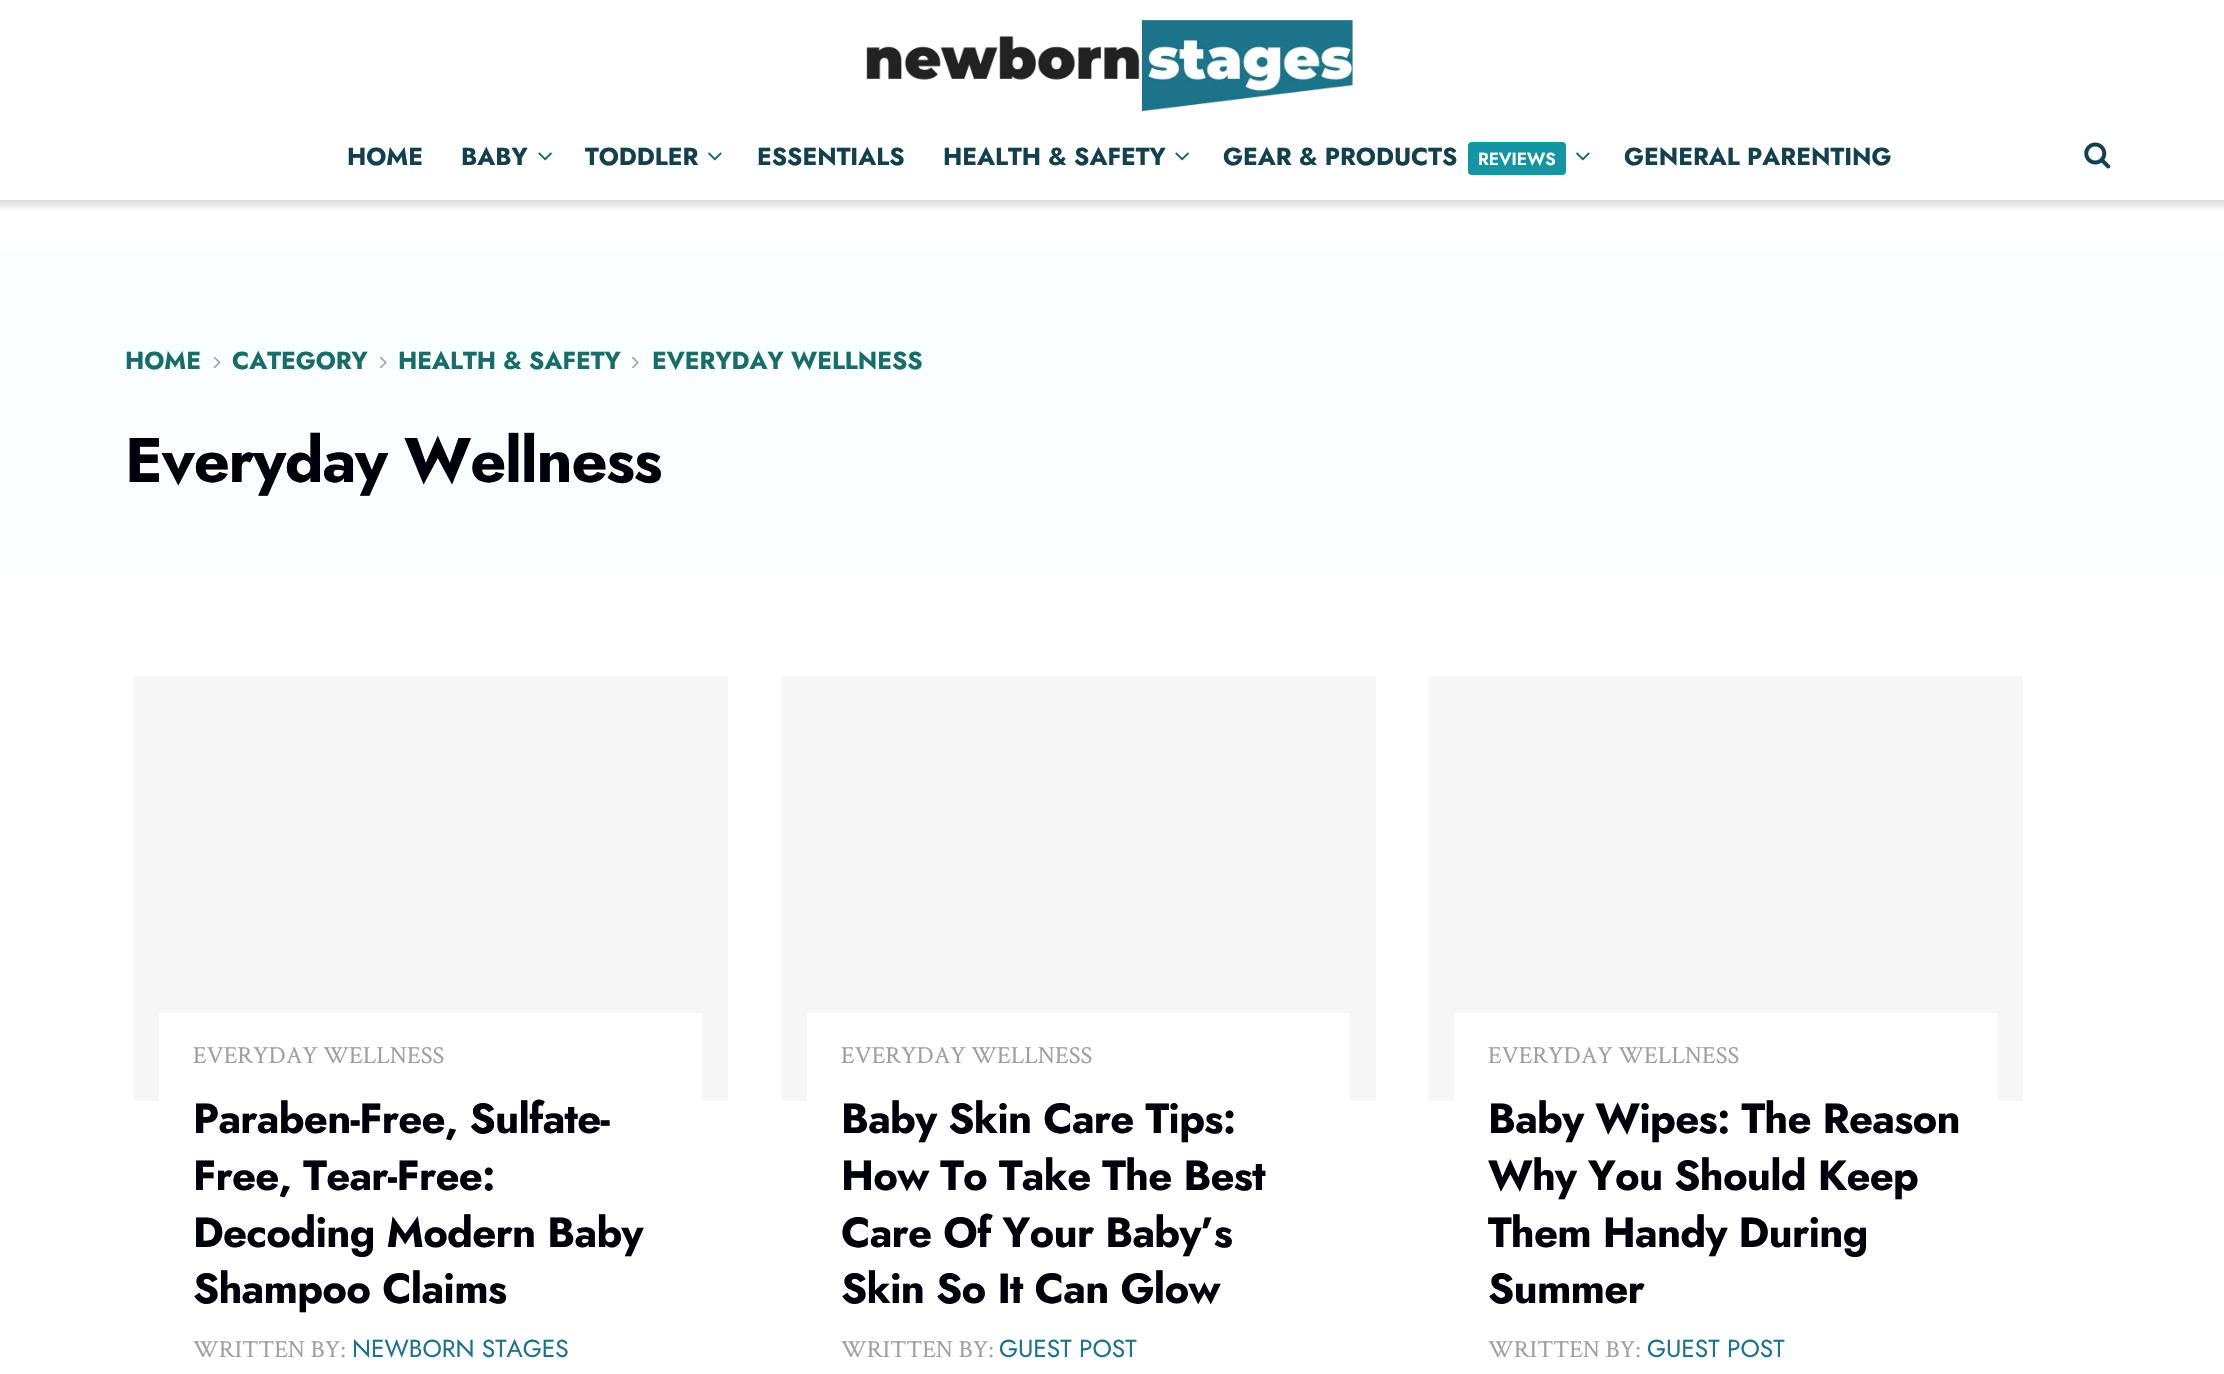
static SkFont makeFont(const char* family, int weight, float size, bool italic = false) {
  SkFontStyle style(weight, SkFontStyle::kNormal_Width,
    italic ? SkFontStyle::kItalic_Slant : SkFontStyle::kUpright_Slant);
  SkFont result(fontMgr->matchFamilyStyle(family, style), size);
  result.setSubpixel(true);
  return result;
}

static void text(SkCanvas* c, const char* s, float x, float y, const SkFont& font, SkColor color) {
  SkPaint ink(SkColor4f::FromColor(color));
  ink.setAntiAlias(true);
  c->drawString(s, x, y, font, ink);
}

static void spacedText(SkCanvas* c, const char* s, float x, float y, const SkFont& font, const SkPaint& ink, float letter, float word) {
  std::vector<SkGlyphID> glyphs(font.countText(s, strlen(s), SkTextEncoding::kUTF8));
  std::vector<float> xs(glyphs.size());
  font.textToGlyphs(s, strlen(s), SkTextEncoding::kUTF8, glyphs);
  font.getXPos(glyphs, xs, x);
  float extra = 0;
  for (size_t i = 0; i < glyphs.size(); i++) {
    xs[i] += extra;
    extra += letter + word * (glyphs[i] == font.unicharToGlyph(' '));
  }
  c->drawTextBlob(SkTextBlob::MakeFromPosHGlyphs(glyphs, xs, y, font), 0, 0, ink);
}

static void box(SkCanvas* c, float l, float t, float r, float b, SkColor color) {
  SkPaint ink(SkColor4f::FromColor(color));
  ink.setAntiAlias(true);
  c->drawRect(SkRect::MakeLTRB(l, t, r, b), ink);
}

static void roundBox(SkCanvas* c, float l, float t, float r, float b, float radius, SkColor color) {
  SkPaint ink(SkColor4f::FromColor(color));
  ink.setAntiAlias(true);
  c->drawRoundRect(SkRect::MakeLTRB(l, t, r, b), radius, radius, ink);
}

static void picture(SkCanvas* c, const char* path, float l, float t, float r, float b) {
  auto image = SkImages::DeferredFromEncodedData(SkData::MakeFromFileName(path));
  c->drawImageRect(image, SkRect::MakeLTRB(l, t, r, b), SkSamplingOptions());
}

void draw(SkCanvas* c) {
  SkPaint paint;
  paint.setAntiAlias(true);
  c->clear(0xffffffff);
  picture(c, "img_01.png", 866, 20, 1353, 112);
  SkFont face1 = makeFont("Jost", 700, 24.5f);
  text(c, "HOME", 347, 165, face1, 0xff13404f);
  text(c, "BABY", 461, 165, face1, 0xff13404f);
  picture(c, "img_02.png", 538, 152, 552, 161);
  text(c, "TODDLER", 585, 165, face1, 0xff13404f);
  picture(c, "img_03.png", 708, 152, 722, 161);
  text(c, "ESSENTIALS", 757, 165, face1, 0xff13404f);
  text(c, "HEALTH & SAFETY", 943, 165, face1, 0xff13404f);
  picture(c, "img_02.png", 1175, 152, 1189, 161);
  text(c, "GEAR & PRODUCTS", 1223, 165, face1, 0xff13404f);
  roundBox(c, 1468, 142, 1566, 175, 4, 0xff1595a3);
  SkFont face2 = makeFont("Jost", 600, 17.5f);
  text(c, "REVIEWS", 1478, 165, face2, 0xffffffff);
  picture(c, "img_03.png", 1576, 152, 1590, 161);
  text(c, "GENERAL PARENTING", 1624, 165, face1, 0xff13404f);
  picture(c, "img_04.png", 2084, 142, 2111, 169);
  {
    const SkColor colors[] = {0xffd9d9d9, 0xffffffff};
    const float stops[] = {0, 1};
    const SkPoint ends[] = {{1112, 199}, {1112, 212}};
    paint.setShader(SkGradientShader::MakeLinear(ends, colors, stops, 2, SkTileMode::kClamp));
    paint.setAlpha(255);
  }
  c->drawRect(SkRect::MakeLTRB(0, 200, 2224, 211), paint);
  box(c, 0, 252, 2224, 571, 0xfff9ffff);
  text(c, "HOME", 125, 369, face1, 0xff196c68);
  picture(c, "img_05.png", 213, 356, 221, 369);
  text(c, "CATEGORY", 232, 369, face1, 0xff196c68);
  picture(c, "img_06.png", 380, 356, 387, 369);
  text(c, "HEALTH & SAFETY", 398, 369, face1, 0xff196c68);
  picture(c, "img_06.png", 632, 356, 639, 369);
  text(c, "EVERYDAY WELLNESS", 652, 369, face1, 0xff196c68);
  SkFont face3 = makeFont("Jost", 700, 63);
  paint.setShader(nullptr);
  paint.setColor(0xff00000a);
  spacedText(c, "Everyday Wellness", 125, 482, face3, paint, -1.25f, 0);
  box(c, 133, 676, 728, 1101, 0xfff7f7f7);
  box(c, 159, 1013, 702, 1101, 0xffffffff);
  SkFont face4 = makeFont("Crimson Text", 400, 24.5f);
  text(c, "EVERYDAY WELLNESS", 193, 1063, face4, 0xffa0a0a0);
  SkFont face5 = makeFont("Jost", 700, 42);
  spacedText(c, "Paraben-Free, Sulfate-", 193, 1133, face5, paint, -0.75f, 0);
  spacedText(c, "Free, Tear-Free:", 193, 1190, face5, paint, -0.75f, 0);
  spacedText(c, "Decoding Modern Baby", 193, 1247, face5, paint, -0.75f, 0);
  spacedText(c, "Shampoo Claims", 193, 1303, face5, paint, -0.75f, 0);
  text(c, "WRITTEN BY:", 193, 1357, face4, 0xffa0a0a0);
  SkFont face6 = makeFont("Jost", 400, 24.5f);
  text(c, "NEWBORN STAGES", 352, 1357, face6, 0xff1d738b);
  box(c, 781, 676, 1376, 1101, 0xfff7f7f7);
  box(c, 807, 1013, 1349, 1101, 0xffffffff);
  text(c, "EVERYDAY WELLNESS", 841, 1063, face4, 0xffa0a0a0);
  spacedText(c, "Baby Skin Care Tips:", 841, 1133, face5, paint, -0.75f, 0);
  spacedText(c, "How To Take The Best", 841, 1190, face5, paint, -0.75f, 0);
  spacedText(c, "Care Of Your Baby’s", 841, 1247, face5, paint, -0.75f, 0);
  spacedText(c, "Skin So It Can Glow", 841, 1303, face5, paint, -0.75f, 0);
  text(c, "WRITTEN BY:", 841, 1357, face4, 0xffa0a0a0);
  text(c, "GUEST POST", 999, 1357, face6, 0xff1d738b);
  box(c, 1428, 676, 2023, 1101, 0xfff7f7f7);
  box(c, 1454, 1013, 1997, 1101, 0xffffffff);
  text(c, "EVERYDAY WELLNESS", 1488, 1063, face4, 0xffa0a0a0);
  spacedText(c, "Baby Wipes: The Reason", 1488, 1133, face5, paint, -0.75f, 0);
  spacedText(c, "Why You Should Keep", 1488, 1190, face5, paint, -0.75f, 0);
  spacedText(c, "Them Handy During", 1488, 1247, face5, paint, -0.75f, 0);
  spacedText(c, "Summer", 1488, 1303, face5, paint, -0.75f, 0);
  text(c, "WRITTEN BY:", 1488, 1357, face4, 0xffa0a0a0);
  text(c, "GUEST POST", 1647, 1357, face6, 0xff1d738b);
}
